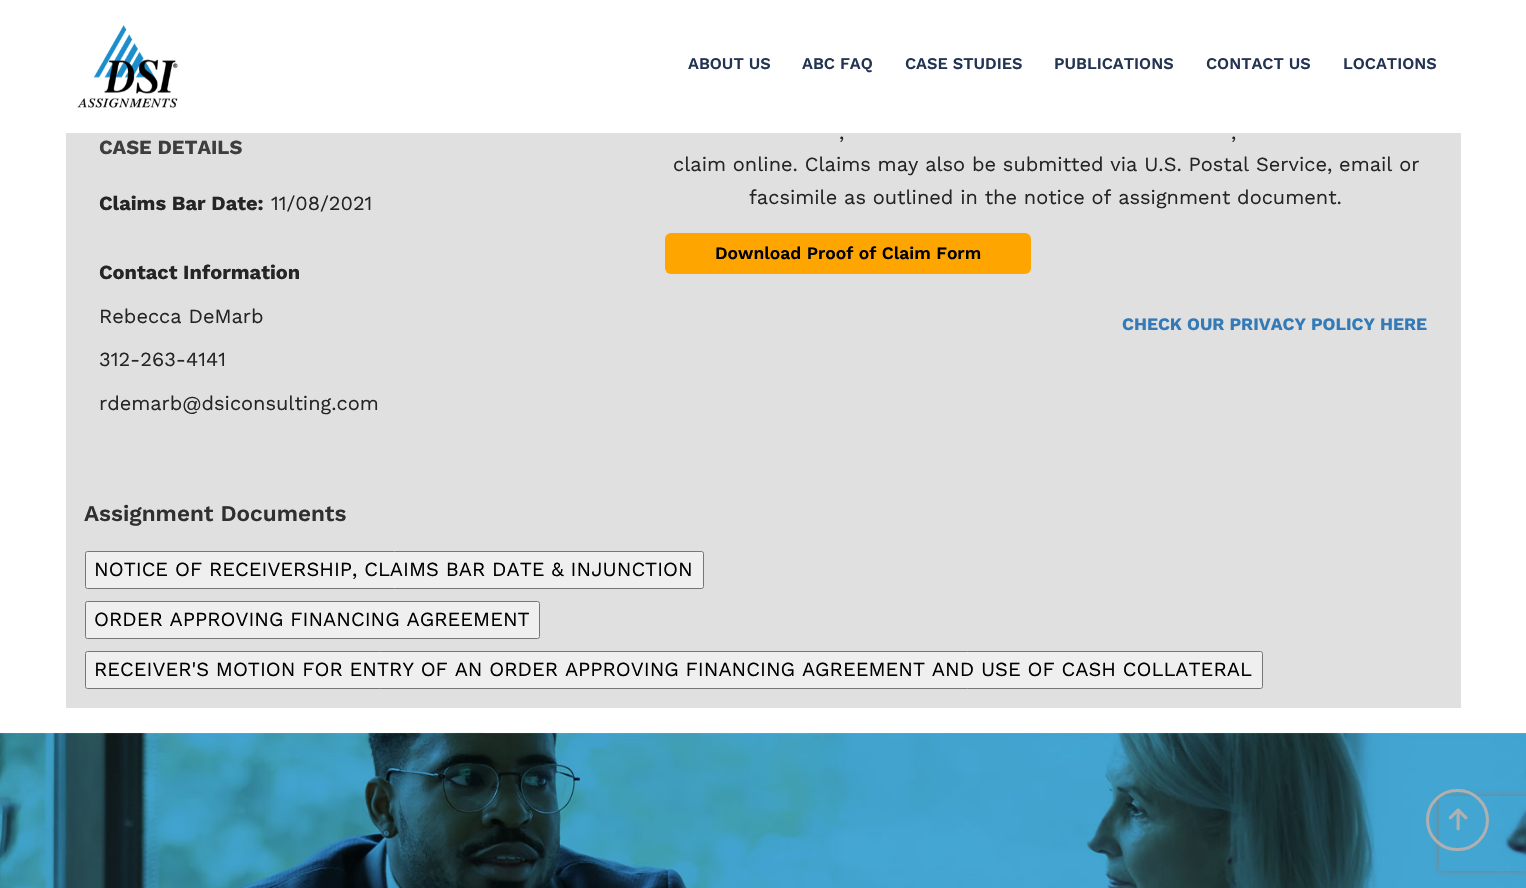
static SkFont makeFont(const char* family, int weight, float size, bool italic = false) {
  SkFontStyle style(weight, SkFontStyle::kNormal_Width,
    italic ? SkFontStyle::kItalic_Slant : SkFontStyle::kUpright_Slant);
  SkFont result(fontMgr->matchFamilyStyle(family, style), size);
  result.setSubpixel(true);
  return result;
}

static void text(SkCanvas* c, const char* s, float x, float y, const SkFont& font, SkColor color) {
  SkPaint ink(SkColor4f::FromColor(color));
  ink.setAntiAlias(true);
  c->drawString(s, x, y, font, ink);
}

static void box(SkCanvas* c, float l, float t, float r, float b, SkColor color) {
  SkPaint ink(SkColor4f::FromColor(color));
  ink.setAntiAlias(true);
  c->drawRect(SkRect::MakeLTRB(l, t, r, b), ink);
}

static void roundBox(SkCanvas* c, float l, float t, float r, float b, float radius, SkColor color) {
  SkPaint ink(SkColor4f::FromColor(color));
  ink.setAntiAlias(true);
  c->drawRoundRect(SkRect::MakeLTRB(l, t, r, b), radius, radius, ink);
}

static void picture(SkCanvas* c, const char* path, float l, float t, float r, float b) {
  auto image = SkImages::DeferredFromEncodedData(SkData::MakeFromFileName(path));
  c->drawImageRect(image, SkRect::MakeLTRB(l, t, r, b), SkSamplingOptions());
}

void draw(SkCanvas* c) {
  SkPaint paint;
  paint.setAntiAlias(true);
  c->clear(0xffffffff);
  picture(c, "img_01.png", 77, 25, 178, 108);
  SkFont face1 = makeFont("Work Sans", 600, 16.25f);
  text(c, "ABOUT US", 688, 69, face1, 0xff233452);
  text(c, "ABC FAQ", 802, 69, face1, 0xff233452);
  text(c, "CASE STUDIES", 905, 69, face1, 0xff233452);
  text(c, "PUBLICATIONS", 1054, 69, face1, 0xff233452);
  text(c, "CONTACT US", 1206, 69, face1, 0xff233452);
  text(c, "LOCATIONS", 1343, 69, face1, 0xff233452);
  box(c, 66, 133, 1461, 708, 0xffe0e0e0);
  SkFont face2 = makeFont("Work Sans", 700, 20);
  text(c, "CASE DETAILS", 99, 154, face2, 0xff3e3e3e);
  text(c, "Claims Bar Date:", 99, 210, face2, 0xff252525);
  SkFont face3 = makeFont("Work Sans", 400, 20);
  text(c, "11/08/2021", 271, 210, face3, 0xff252525);
  text(c, "Contact Information", 99, 279, face2, 0xff252525);
  text(c, "Rebecca DeMarb", 99, 323, face3, 0xff252525);
  text(c, "312-263-4141", 99, 366, face3, 0xff252525);
  text(c, "rdemarb@dsiconsulting.com", 99, 410, face3, 0xff252525);
  text(c, ",", 839, 139, face3, 0xff252525);
  text(c, ",", 1231, 139, face3, 0xff252525);
  text(c, "claim online. Claims may also be submitted via U.S. Postal Service, email or", 673, 171, face3, 0xff252525);
  text(c, "facsimile as outlined in the notice of assignment document.", 749, 204, face3, 0xff252525);
  roundBox(c, 665, 233, 1031, 274, 6, 0xffffa500);
  SkFont face4 = makeFont("Work Sans", 600, 17.5f);
  text(c, "Download Proof of Claim Form", 715, 259, face4, 0xff000000);
  SkFont face5 = makeFont("Work Sans", 700, 17.5f);
  text(c, "CHECK OUR PRIVACY POLICY HERE", 1122, 330, face5, 0xff337ab7);
  SkFont face6 = makeFont("Work Sans", 600, 22.5f);
  text(c, "Assignment Documents", 84, 521, face6, 0xff303030);
  paint.setColor(0xffefefef);
  c->drawRoundRect(SkRect::MakeLTRB(85.5f, 551.5f, 703.5f, 588.5f), 2, 2, paint);
  paint.setStyle(SkPaint::kStroke_Style);
  paint.setStrokeWidth(1);
  paint.setColor(0xff767676);
  c->drawRoundRect(SkRect::MakeLTRB(85.5f, 551.5f, 703.5f, 588.5f), 2, 2, paint);
  text(c, "NOTICE OF RECEIVERSHIP, CLAIMS BAR DATE & INJUNCTION", 94, 576, face3, 0xff000000);
  paint.setStyle(SkPaint::kFill_Style);
  paint.setColor(0xffefefef);
  c->drawRoundRect(SkRect::MakeLTRB(85.5f, 601.5f, 539.5f, 638.5f), 2, 2, paint);
  paint.setStyle(SkPaint::kStroke_Style);
  paint.setColor(0xff767676);
  c->drawRoundRect(SkRect::MakeLTRB(85.5f, 601.5f, 539.5f, 638.5f), 2, 2, paint);
  text(c, "ORDER APPROVING FINANCING AGREEMENT", 94, 626, face3, 0xff000000);
  paint.setStyle(SkPaint::kFill_Style);
  paint.setColor(0xffefefef);
  c->drawRoundRect(SkRect::MakeLTRB(85.5f, 651.5f, 1262.5f, 688.5f), 2, 2, paint);
  paint.setStyle(SkPaint::kStroke_Style);
  paint.setColor(0xff767676);
  c->drawRoundRect(SkRect::MakeLTRB(85.5f, 651.5f, 1262.5f, 688.5f), 2, 2, paint);
  text(c, "RECEIVER'S MOTION FOR ENTRY OF AN ORDER APPROVING FINANCING AGREEMENT AND USE OF CASH COLLATERAL", 94, 676, face3, 0xff000000);
  picture(c, "img_02.png", 0, 732, 1526, 888);
  c->save();
  c->clipPath(SkPathBuilder(SkPathFillType::kEvenOdd).moveTo(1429, 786).lineTo(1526, 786).lineTo(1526, 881).lineTo(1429, 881).close().moveTo(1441.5f, 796).lineTo(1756.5f, 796).cubicTo(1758, 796, 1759, 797, 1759, 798.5f).lineTo(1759, 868.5f).cubicTo(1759, 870, 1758, 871, 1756.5f, 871).lineTo(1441.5f, 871).cubicTo(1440, 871, 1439, 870, 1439, 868.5f).lineTo(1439, 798.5f).cubicTo(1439, 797, 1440, 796, 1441.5f, 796).close().detach(), true);
  paint.setStyle(SkPaint::kFill_Style);
  paint.setColor(0xff808080);
  paint.setMaskFilter(SkMaskFilter::MakeBlur(kNormal_SkBlurStyle, 3));
  c->drawRoundRect(SkRect::MakeLTRB(1439, 796, 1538, 871), 2.5f, 2.5f, paint);
  paint.setMaskFilter(nullptr);
  c->restore();
  paint.setStyle(SkPaint::kStroke_Style);
  paint.setStrokeWidth(3);
  paint.setColor(0xffb0b0b0);
  c->drawRoundRect(SkRect::MakeLTRB(1427.5f, 790.5f, 1487.5f, 849.5f), 29.5f, 29.5f, paint);
  picture(c, "img_03.png", 1448, 808, 1468, 831);
}
